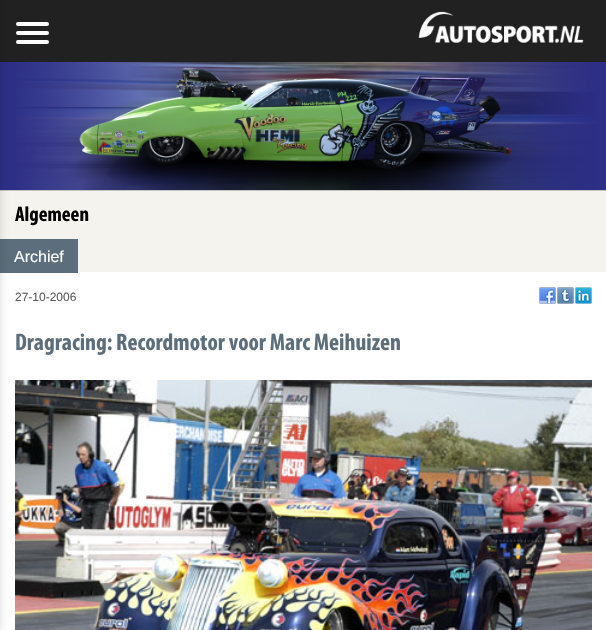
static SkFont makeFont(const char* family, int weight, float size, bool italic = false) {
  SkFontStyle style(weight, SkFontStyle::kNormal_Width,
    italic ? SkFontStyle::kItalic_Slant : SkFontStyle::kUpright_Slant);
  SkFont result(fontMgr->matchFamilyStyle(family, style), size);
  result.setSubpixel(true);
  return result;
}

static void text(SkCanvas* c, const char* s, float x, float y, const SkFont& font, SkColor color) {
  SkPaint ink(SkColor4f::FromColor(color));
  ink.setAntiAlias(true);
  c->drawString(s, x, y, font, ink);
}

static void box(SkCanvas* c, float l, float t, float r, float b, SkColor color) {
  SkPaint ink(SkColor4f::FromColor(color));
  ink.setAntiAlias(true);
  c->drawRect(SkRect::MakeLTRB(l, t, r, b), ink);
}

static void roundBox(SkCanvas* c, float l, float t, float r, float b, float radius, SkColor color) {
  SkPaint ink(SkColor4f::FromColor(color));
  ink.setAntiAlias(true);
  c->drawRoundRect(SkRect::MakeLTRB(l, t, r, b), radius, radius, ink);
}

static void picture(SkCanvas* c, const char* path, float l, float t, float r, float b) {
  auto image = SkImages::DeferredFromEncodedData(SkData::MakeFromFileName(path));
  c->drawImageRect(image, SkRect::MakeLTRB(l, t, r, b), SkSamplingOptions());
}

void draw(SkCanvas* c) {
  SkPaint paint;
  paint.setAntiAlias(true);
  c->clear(0xfff4f3ed);
  box(c, 0, 0, 606, 62, 0xff212121);
  picture(c, "img_01.png", 418, 11, 584, 44);
  box(c, 0, 190, 606, 191, 0xffc4c4c4);
  box(c, 0, 62, 606, 190, 0xff2d2f86);
  box(c, 0, 272, 606, 630, 0xffffffff);
  box(c, 0, 239, 78, 273, 0xff5c6e7b);
  paint.setColor(0x26000000);
  paint.setMaskFilter(SkMaskFilter::MakeBlur(kNormal_SkBlurStyle, 4));
  c->drawRect(SkRect::MakeLTRB(-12, 0, 0, 630), paint);
  paint.setMaskFilter(nullptr);
  roundBox(c, 16, 22, 49, 26, 2, 0xffffffff);
  roundBox(c, 16, 31, 49, 35, 2, 0xffffffff);
  roundBox(c, 16, 40, 49, 44, 2, 0xffffffff);
  picture(c, "img_02.png", 16, 62, 596, 190);
  SkFont face1 = makeFont("Myriad", 700, 21);
  text(c, "Algemeen", 15, 221, face1, 0xff000000);
  SkFont face2 = makeFont("Liberation Sans", 400, 16);
  text(c, "Archief", 14, 262, face2, 0xffffffff);
  SkFont face3 = makeFont("Liberation Sans", 400, 12);
  text(c, "27-10-2006", 15, 301, face3, 0xff5a5a5a);
  picture(c, "img_03.png", 539, 287, 556, 304);
  picture(c, "img_04.png", 557, 287, 574, 304);
  picture(c, "img_05.png", 575, 287, 592, 304);
  SkFont face4 = makeFont("Myriad", 700, 24);
  text(c, "Dragracing: Recordmotor voor Marc Meihuizen", 15, 350, face4, 0xff5c6e7b);
  picture(c, "img_06.png", 15, 380, 592, 630);
}
